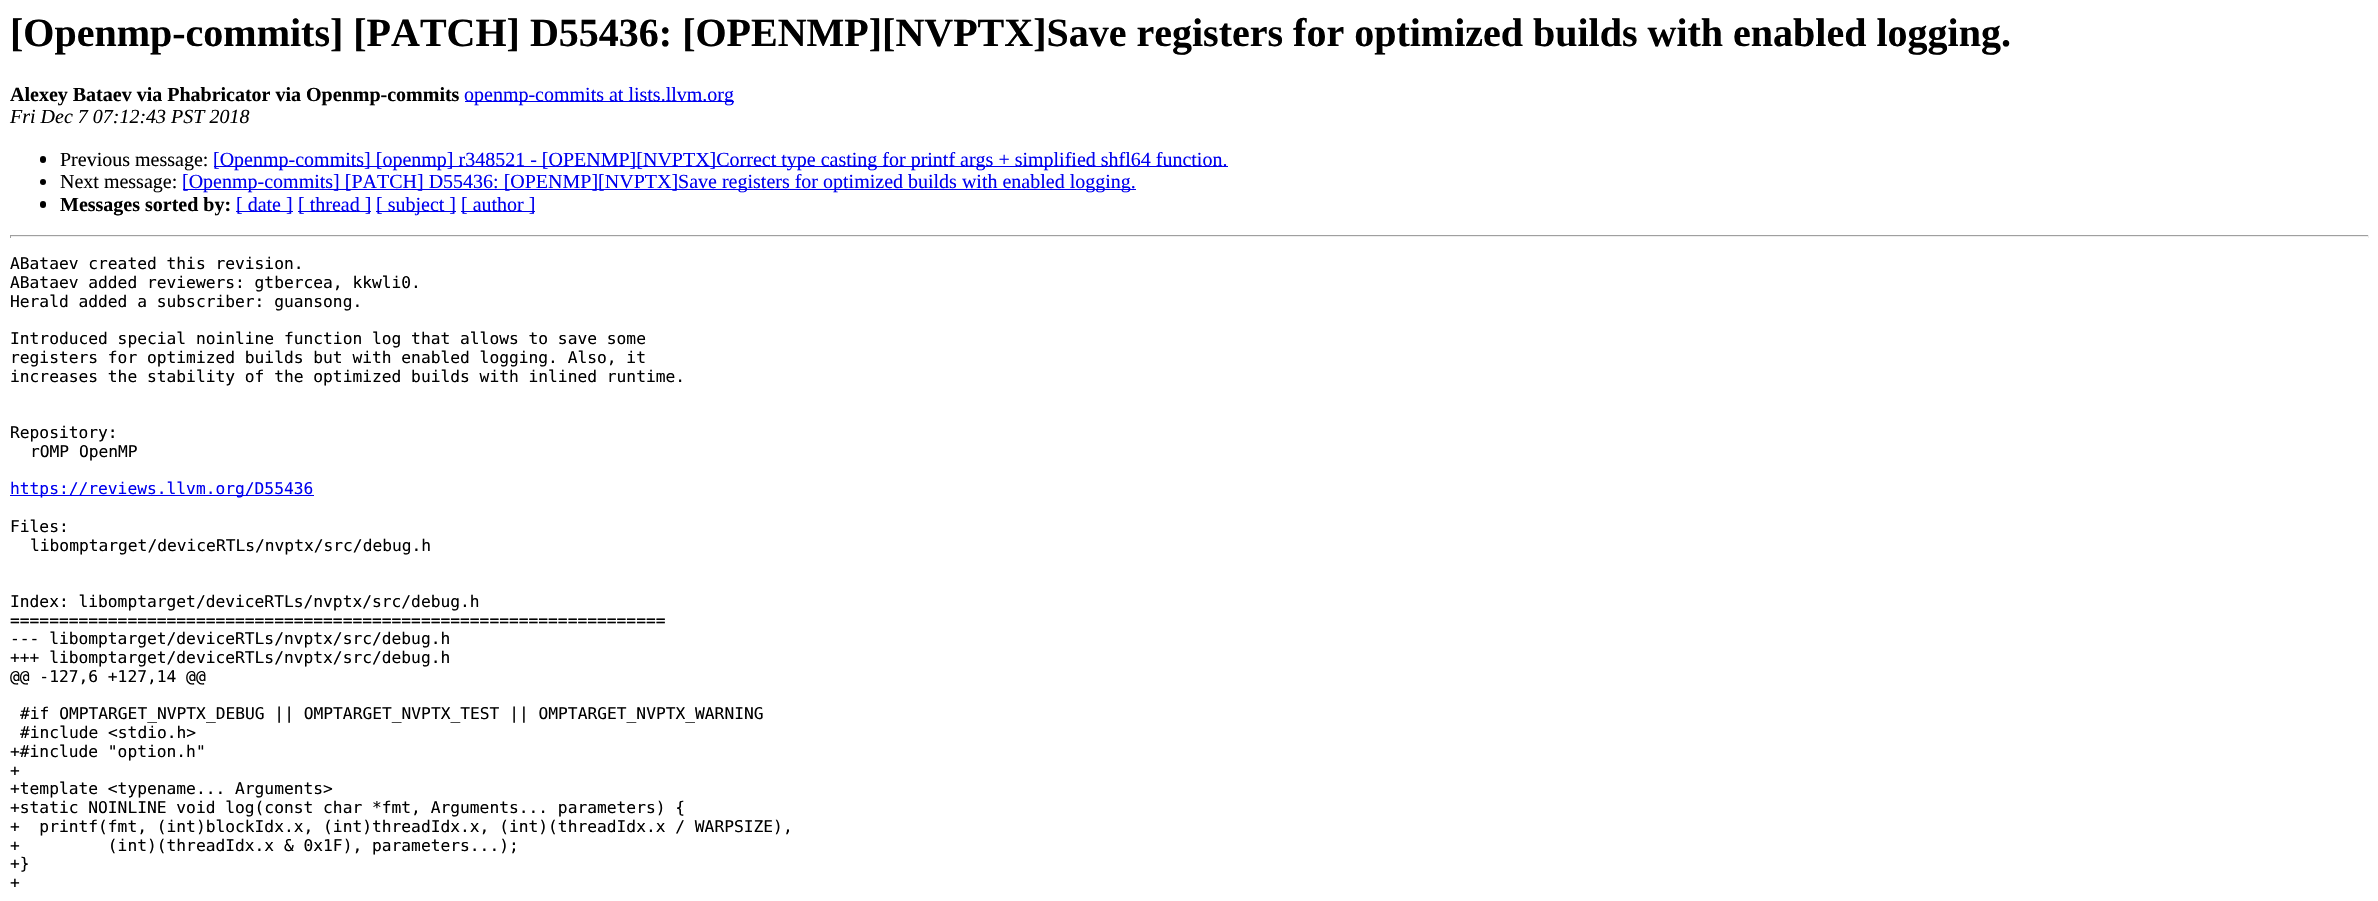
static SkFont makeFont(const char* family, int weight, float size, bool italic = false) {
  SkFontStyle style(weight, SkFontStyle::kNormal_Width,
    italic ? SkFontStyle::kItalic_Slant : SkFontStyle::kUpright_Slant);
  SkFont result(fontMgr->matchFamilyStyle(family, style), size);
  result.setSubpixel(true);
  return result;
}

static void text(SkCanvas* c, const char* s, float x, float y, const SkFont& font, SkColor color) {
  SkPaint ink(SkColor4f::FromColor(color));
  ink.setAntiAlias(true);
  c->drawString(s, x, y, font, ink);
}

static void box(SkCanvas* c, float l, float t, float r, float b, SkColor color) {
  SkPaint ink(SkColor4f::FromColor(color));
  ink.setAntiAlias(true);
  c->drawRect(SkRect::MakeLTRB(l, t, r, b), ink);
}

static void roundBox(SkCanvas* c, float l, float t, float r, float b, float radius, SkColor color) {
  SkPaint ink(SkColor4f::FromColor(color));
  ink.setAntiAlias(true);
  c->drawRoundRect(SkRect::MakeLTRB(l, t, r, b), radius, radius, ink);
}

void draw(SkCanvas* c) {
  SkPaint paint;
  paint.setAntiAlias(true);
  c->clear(0xffffffff);
  SkFont face1 = makeFont("Liberation Serif", 700, 40);
  text(c, "[Openmp-commits] [PATCH] D55436: [OPENMP][NVPTX]Save registers for optimized builds with enabled logging.", 10, 46, face1, 0xff000000);
  SkFont face2 = makeFont("Liberation Serif", 700, 20);
  text(c, "Alexey Bataev via Phabricator via Openmp-commits", 10, 101, face2, 0xff000000);
  box(c, 465, 101, 734, 102, 0xff0000ee);
  SkFont face3 = makeFont("Liberation Serif", 400, 20);
  text(c, "openmp-commits at lists.llvm.org", 464, 101, face3, 0xff0000ee);
  SkFont face4 = makeFont("Liberation Serif", 400, 20, true);
  text(c, "Fri Dec 7 07:12:43 PST 2018", 10, 123, face4, 0xff000000);
  roundBox(c, 40, 156, 46, 163, 3, 0xff000000);
  text(c, "Previous message:", 60, 166, face3, 0xff000000);
  box(c, 214, 166, 1228, 167, 0xff0000ee);
  text(c, "[Openmp-commits] [openmp] r348521 - [OPENMP][NVPTX]Correct type casting for printf args + simplified shfl64 function.", 213, 166, face3, 0xff0000ee);
  paint.setColor(0xff000000);
  c->drawCircle(43, 182, 3, paint);
  text(c, "Next message:", 60, 188, face3, 0xff000000);
  box(c, 183, 189, 1136, 190, 0xff0000ee);
  text(c, "[Openmp-commits] [PATCH] D55436: [OPENMP][NVPTX]Save registers for optimized builds with enabled logging.", 182, 188, face3, 0xff0000ee);
  roundBox(c, 40, 201, 46, 208, 3, 0xff000000);
  text(c, "Messages sorted by:", 60, 211, face2, 0xff000000);
  box(c, 236, 211, 293, 212, 0xff0000ee);
  text(c, "[ date ]", 236, 211, face3, 0xff0000ee);
  box(c, 298, 211, 371, 212, 0xff0000ee);
  text(c, "[ thread ]", 298, 211, face3, 0xff0000ee);
  box(c, 376, 211, 456, 212, 0xff0000ee);
  text(c, "[ subject ]", 376, 211, face3, 0xff0000ee);
  box(c, 461, 211, 535, 212, 0xff0000ee);
  text(c, "[ author ]", 461, 211, face3, 0xff0000ee);
  box(c, 10, 235, 2369, 236, 0xff9f9f9f);
  box(c, 2368, 235, 2369, 238, 0xffeeeeee);
  box(c, 10, 236, 2369, 237, 0xffeeeeee);
  box(c, 10, 235, 11, 238, 0xff9f9f9f);
  SkFont face5 = makeFont("DejaVu Sans Mono", 400, 16.25f);
  text(c, "ABataev created this revision.", 10, 269, face5, 0xff000000);
  text(c, "ABataev added reviewers: gtbercea, kkwli0.", 10, 288, face5, 0xff000000);
  text(c, "Herald added a subscriber: guansong.", 10, 307, face5, 0xff000000);
  text(c, "Introduced special noinline function log that allows to save some", 10, 344, face5, 0xff000000);
  text(c, "registers for optimized builds but with enabled logging. Also, it", 10, 363, face5, 0xff000000);
  text(c, "increases the stability of the optimized builds with inlined runtime.", 10, 382, face5, 0xff000000);
  text(c, "Repository:", 10, 438, face5, 0xff000000);
  text(c, "rOMP OpenMP", 30, 457, face5, 0xff000000);
  box(c, 10, 495, 314, 496, 0xff0000ee);
  text(c, "https://reviews.llvm.org/D55436", 10, 494, face5, 0xff0000ee);
  text(c, "Files:", 10, 532, face5, 0xff000000);
  text(c, "libomptarget/deviceRTLs/nvptx/src/debug.h", 30, 551, face5, 0xff000000);
  text(c, "Index: libomptarget/deviceRTLs/nvptx/src/debug.h", 10, 607, face5, 0xff000000);
  text(c, "===================================================================", 10, 626, face5, 0xff000000);
  text(c, "--- libomptarget/deviceRTLs/nvptx/src/debug.h", 10, 644, face5, 0xff000000);
  text(c, "+++ libomptarget/deviceRTLs/nvptx/src/debug.h", 10, 663, face5, 0xff000000);
  text(c, "@@ -127,6 +127,14 @@", 10, 682, face5, 0xff000000);
  text(c, "#if OMPTARGET_NVPTX_DEBUG || OMPTARGET_NVPTX_TEST || OMPTARGET_NVPTX_WARNING", 20, 719, face5, 0xff000000);
  text(c, "#include <stdio.h>", 20, 738, face5, 0xff000000);
  text(c, "+#include \"option.h\"", 10, 757, face5, 0xff000000);
  text(c, "+", 10, 776, face5, 0xff000000);
  text(c, "+template <typename... Arguments>", 10, 794, face5, 0xff000000);
  text(c, "+static NOINLINE void log(const char *fmt, Arguments... parameters) {", 10, 813, face5, 0xff000000);
  text(c, "+  printf(fmt, (int)blockIdx.x, (int)threadIdx.x, (int)(threadIdx.x / WARPSIZE),", 10, 832, face5, 0xff000000);
  text(c, "+         (int)(threadIdx.x & 0x1F), parameters...);", 10, 851, face5, 0xff000000);
  text(c, "+}", 10, 869, face5, 0xff000000);
  text(c, "+", 10, 888, face5, 0xff000000);
}
